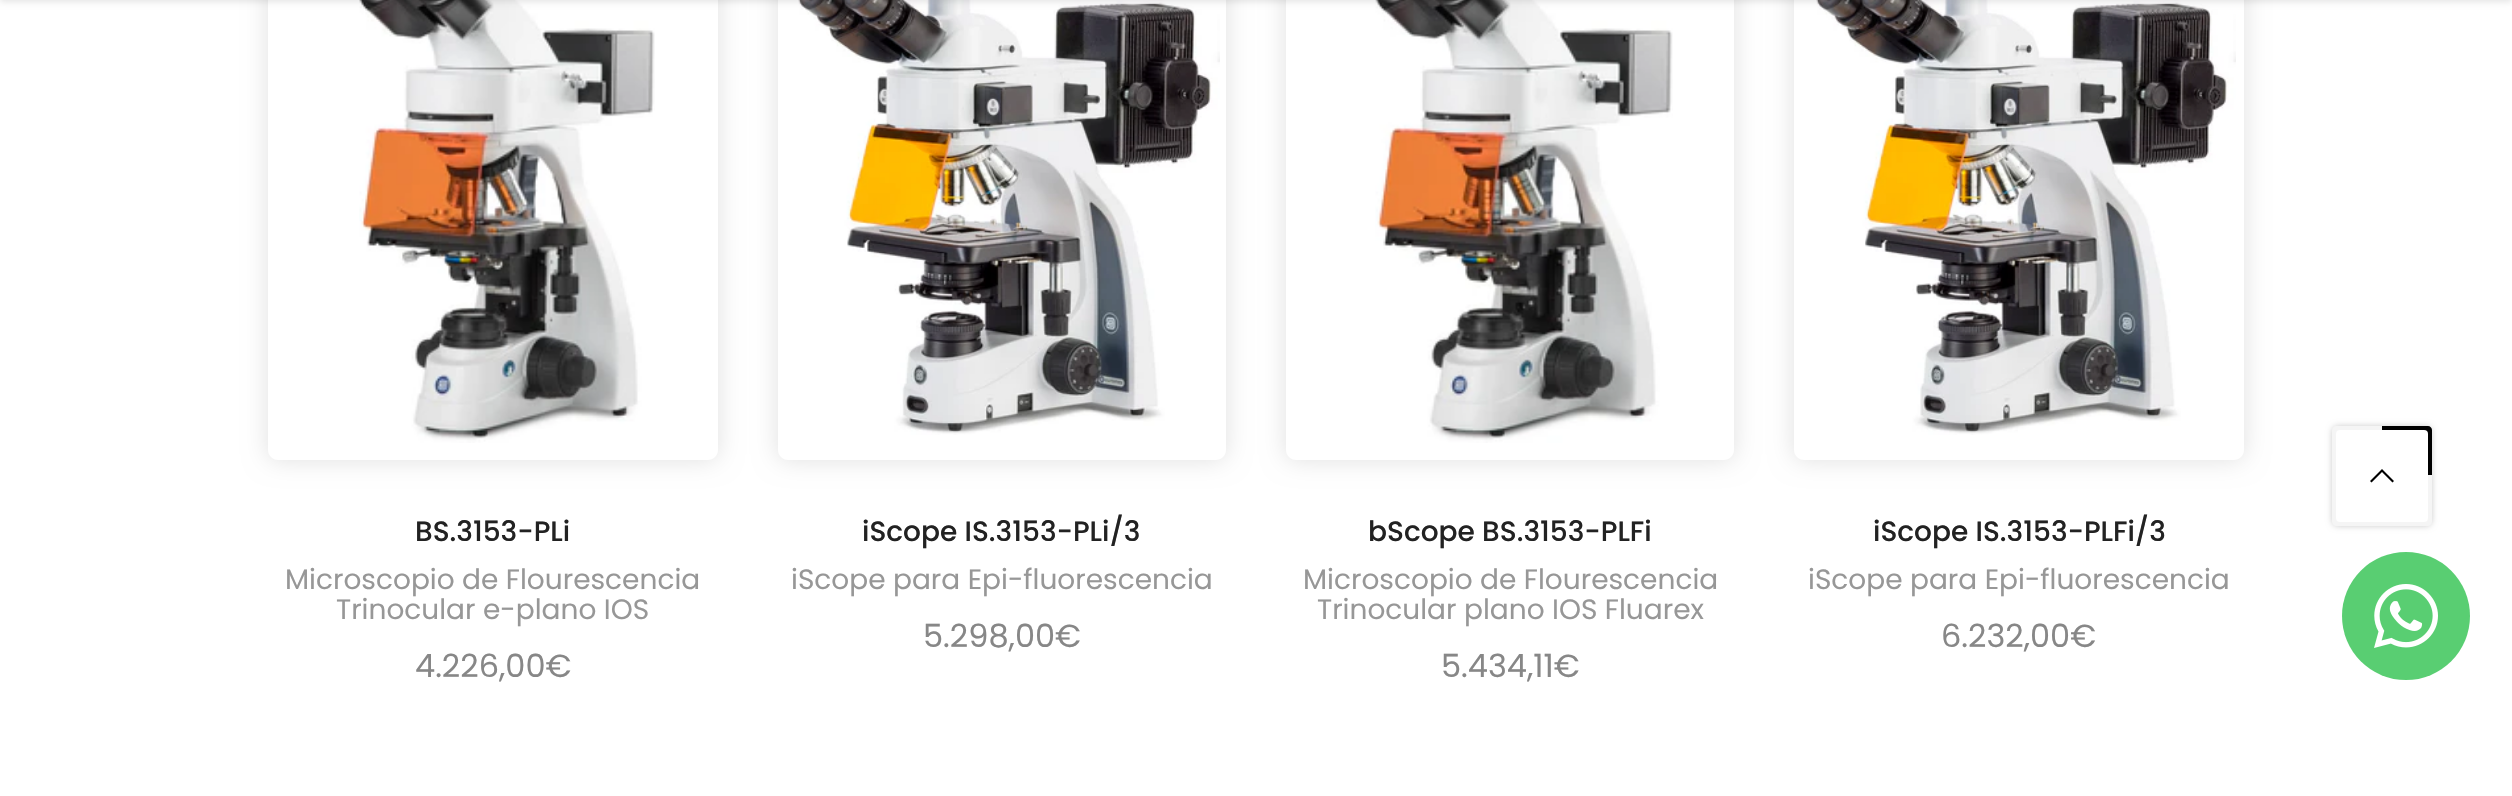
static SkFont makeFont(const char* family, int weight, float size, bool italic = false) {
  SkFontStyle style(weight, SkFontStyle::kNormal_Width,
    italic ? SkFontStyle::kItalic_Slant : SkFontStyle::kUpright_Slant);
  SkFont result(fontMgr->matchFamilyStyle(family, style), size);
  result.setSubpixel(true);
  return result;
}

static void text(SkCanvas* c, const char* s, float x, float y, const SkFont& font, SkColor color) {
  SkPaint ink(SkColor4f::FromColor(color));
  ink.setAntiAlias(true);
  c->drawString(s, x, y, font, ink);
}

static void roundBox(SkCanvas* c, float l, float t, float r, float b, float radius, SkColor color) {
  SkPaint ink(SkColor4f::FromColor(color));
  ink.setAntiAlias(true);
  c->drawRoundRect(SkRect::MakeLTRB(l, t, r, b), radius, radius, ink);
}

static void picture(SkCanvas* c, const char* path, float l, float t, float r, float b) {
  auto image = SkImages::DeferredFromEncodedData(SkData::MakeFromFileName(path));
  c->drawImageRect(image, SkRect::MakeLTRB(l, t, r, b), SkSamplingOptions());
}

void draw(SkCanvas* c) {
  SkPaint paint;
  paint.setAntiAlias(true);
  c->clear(0xffffffff);
  paint.setColor(0x33000000);
  paint.setMaskFilter(SkMaskFilter::MakeBlur(kNormal_SkBlurStyle, 3));
  c->drawRoundRect(SkRect::MakeLTRB(2332, 426, 2432, 526), 6, 6, paint);
  paint.setMaskFilter(nullptr);
  paint.setColor(0xff000000);
  c->drawPath(SkPathBuilder().moveTo(2382, 476).lineTo(2432, 475).lineTo(2432, 430).cubicTo(2432, 428, 2430, 426, 2428, 426).lineTo(2382, 426).close().detach(), paint);
  paint.setColor(0xfff5f5f5);
  c->drawPath(SkPathBuilder().moveTo(2382, 476).lineTo(2382, 426).lineTo(2336, 426).cubicTo(2334, 426, 2332, 428, 2332, 430).lineTo(2332, 522).cubicTo(2332, 524, 2334, 526, 2336, 526).lineTo(2428, 526).cubicTo(2430, 526, 2432, 524, 2432, 522).lineTo(2432, 475).close().detach(), paint);
  roundBox(c, 2336, 430, 2428, 522, 4, 0xffffffff);
  paint.setColor(0xff000000);
  c->drawPath(SkPathBuilder().moveTo(2383.5f, 470.5f).lineTo(2382, 469).lineTo(2370, 481).lineTo(2371.5f, 482.5f).lineTo(2382, 472).lineTo(2392.5f, 482.5f).lineTo(2394, 481).lineTo(2388, 475).close().detach(), paint);
  c->save();
  c->clipPath(SkPathBuilder(SkPathFillType::kEvenOdd).moveTo(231, 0).lineTo(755, 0).lineTo(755, 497).lineTo(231, 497).close().moveTo(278, -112).lineTo(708, -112).cubicTo(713.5f, -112, 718, -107.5f, 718, -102).lineTo(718, 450).cubicTo(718, 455.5f, 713.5f, 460, 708, 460).lineTo(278, 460).cubicTo(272.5f, 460, 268, 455.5f, 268, 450).lineTo(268, -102).cubicTo(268, -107.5f, 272.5f, -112, 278, -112).close().detach(), true);
  paint.setColor(0x1f000000);
  paint.setMaskFilter(SkMaskFilter::MakeBlur(kNormal_SkBlurStyle, 12));
  c->drawRoundRect(SkRect::MakeLTRB(268, -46, 718, 460), 10, 10, paint);
  paint.setMaskFilter(nullptr);
  c->restore();
  picture(c, "img_01.png", 359, 0, 655, 443);
  c->save();
  c->clipPath(SkPathBuilder(SkPathFillType::kEvenOdd).moveTo(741, 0).lineTo(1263, 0).lineTo(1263, 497).lineTo(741, 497).close().moveTo(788, -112).lineTo(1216, -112).cubicTo(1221.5f, -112, 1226, -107.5f, 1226, -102).lineTo(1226, 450).cubicTo(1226, 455.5f, 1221.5f, 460, 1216, 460).lineTo(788, 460).cubicTo(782.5f, 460, 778, 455.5f, 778, 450).lineTo(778, -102).cubicTo(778, -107.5f, 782.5f, -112, 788, -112).close().detach(), true);
  paint.setMaskFilter(SkMaskFilter::MakeBlur(kNormal_SkBlurStyle, 12));
  c->drawRoundRect(SkRect::MakeLTRB(778, -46, 1226, 460), 10, 10, paint);
  paint.setMaskFilter(nullptr);
  c->restore();
  picture(c, "img_02.png", 798, 0, 1220, 435);
  c->save();
  c->clipPath(SkPathBuilder(SkPathFillType::kEvenOdd).moveTo(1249, 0).lineTo(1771, 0).lineTo(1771, 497).lineTo(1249, 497).close().moveTo(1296, -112).lineTo(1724, -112).cubicTo(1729.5f, -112, 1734, -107.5f, 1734, -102).lineTo(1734, 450).cubicTo(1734, 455.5f, 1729.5f, 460, 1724, 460).lineTo(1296, 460).cubicTo(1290.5f, 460, 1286, 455.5f, 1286, 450).lineTo(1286, -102).cubicTo(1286, -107.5f, 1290.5f, -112, 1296, -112).close().detach(), true);
  paint.setMaskFilter(SkMaskFilter::MakeBlur(kNormal_SkBlurStyle, 12));
  c->drawRoundRect(SkRect::MakeLTRB(1286, -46, 1734, 460), 10, 10, paint);
  paint.setMaskFilter(nullptr);
  c->restore();
  picture(c, "img_03.png", 1375, 0, 1673, 443);
  c->save();
  c->clipPath(SkPathBuilder(SkPathFillType::kEvenOdd).moveTo(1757, 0).lineTo(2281, 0).lineTo(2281, 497).lineTo(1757, 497).close().moveTo(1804, -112).lineTo(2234, -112).cubicTo(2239.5f, -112, 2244, -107.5f, 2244, -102).lineTo(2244, 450).cubicTo(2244, 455.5f, 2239.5f, 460, 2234, 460).lineTo(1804, 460).cubicTo(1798.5f, 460, 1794, 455.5f, 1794, 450).lineTo(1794, -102).cubicTo(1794, -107.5f, 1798.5f, -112, 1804, -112).close().detach(), true);
  paint.setMaskFilter(SkMaskFilter::MakeBlur(kNormal_SkBlurStyle, 12));
  c->drawRoundRect(SkRect::MakeLTRB(1794, -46, 2244, 460), 10, 10, paint);
  paint.setMaskFilter(nullptr);
  c->restore();
  picture(c, "img_04.png", 1816, 0, 2236, 435);
  paint.setColor(0x1a000000);
  paint.setMaskFilter(SkMaskFilter::MakeBlur(kNormal_SkBlurStyle, 3));
  c->drawRect(SkRect::MakeLTRB(0, -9, 2512, 2), paint);
  paint.setMaskFilter(nullptr);
  SkFont face1 = makeFont("Poppins", 500, 28);
  text(c, "BS.3153-PLi", 415, 541, face1, 0xff222222);
  SkFont face2 = makeFont("Poppins", 400, 28);
  text(c, "Microscopio de Flourescencia", 285, 589, face2, 0xff979797);
  text(c, "Trinocular e-plano IOS", 336, 619, face2, 0xff979797);
  SkFont face3 = makeFont("Poppins", 400, 32);
  text(c, "4.226,00€", 415, 677, face3, 0xff878787);
  text(c, "iScope IS.3153-PLi/3", 862, 541, face1, 0xff222222);
  text(c, "iScope para Epi-fluorescencia", 791, 589, face2, 0xff979797);
  text(c, "5.298,00€", 923, 647, face3, 0xff878787);
  text(c, "bScope BS.3153-PLFi", 1368, 541, face1, 0xff222222);
  text(c, "Microscopio de Flourescencia", 1303, 589, face2, 0xff979797);
  text(c, "Trinocular plano IOS Fluarex", 1317, 619, face2, 0xff979797);
  text(c, "5.434,11€", 1441, 677, face3, 0xff878787);
  text(c, "iScope IS.3153-PLFi/3", 1873, 541, face1, 0xff222222);
  text(c, "iScope para Epi-fluorescencia", 1808, 589, face2, 0xff979797);
  text(c, "6.232,00€", 1941, 647, face3, 0xff878787);
  paint.setColor(0xff59ce72);
  c->drawCircle(2406, 616, 64, paint);
  picture(c, "img_05.png", 2374, 584, 2438, 648);
}
